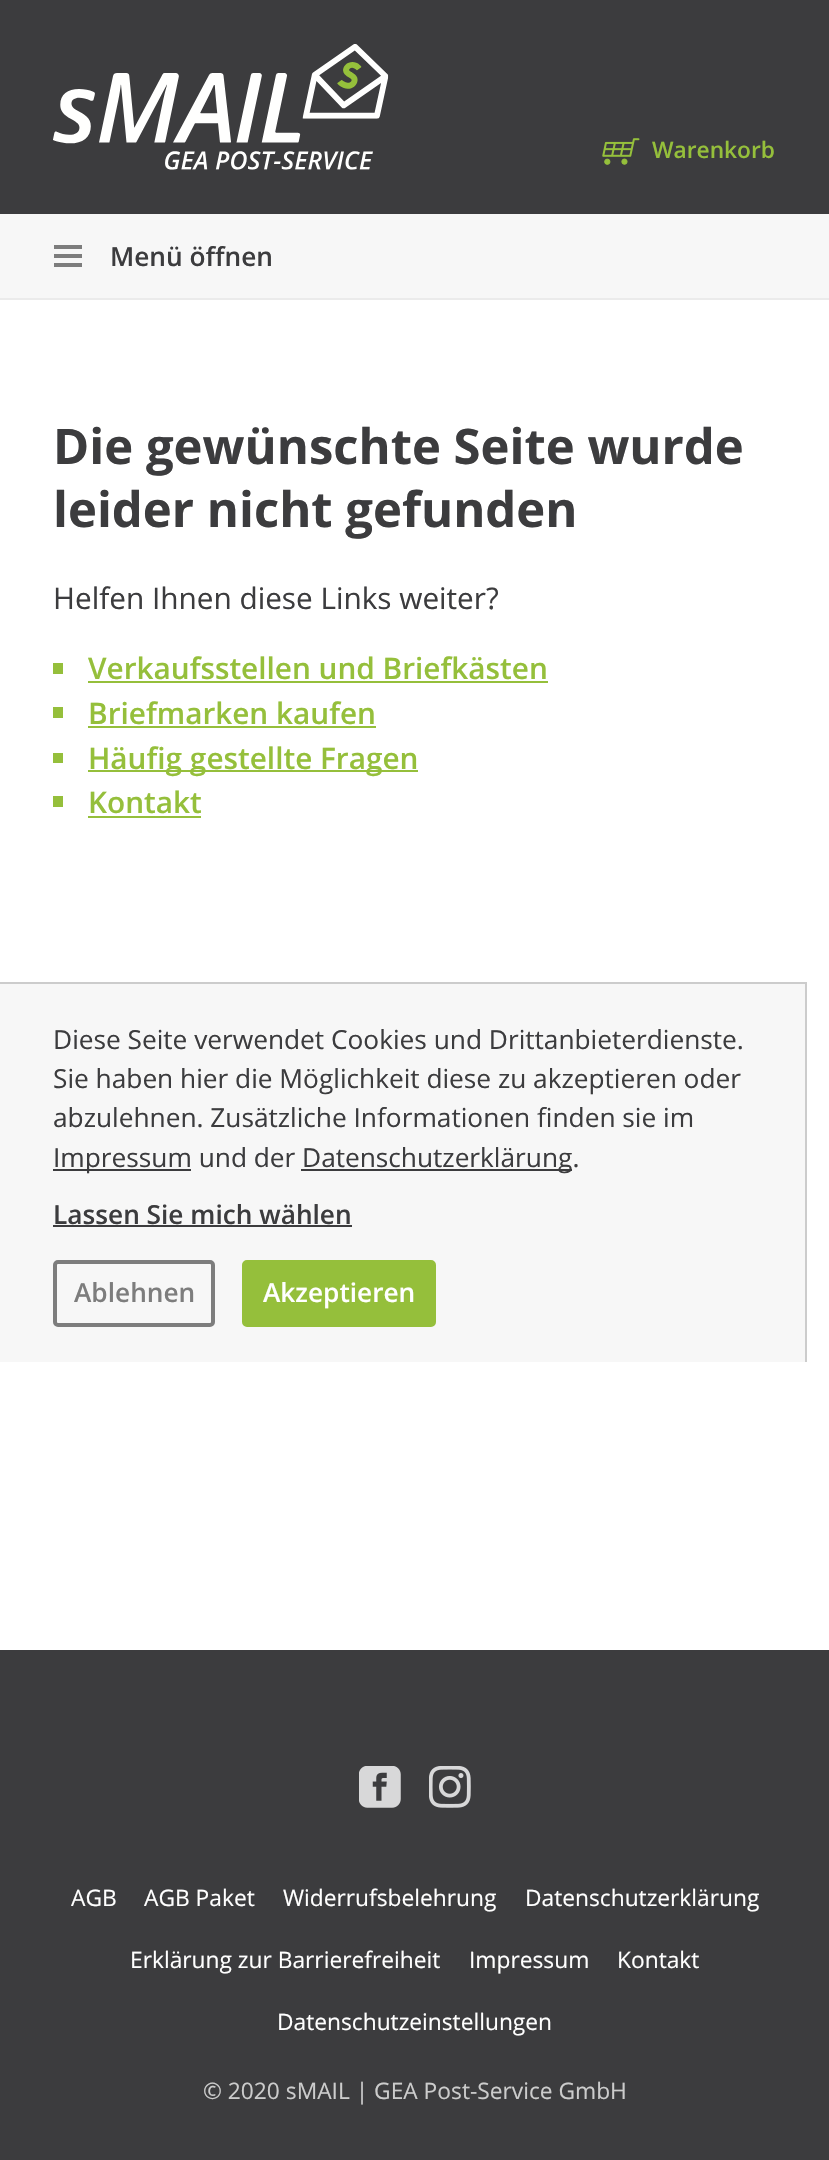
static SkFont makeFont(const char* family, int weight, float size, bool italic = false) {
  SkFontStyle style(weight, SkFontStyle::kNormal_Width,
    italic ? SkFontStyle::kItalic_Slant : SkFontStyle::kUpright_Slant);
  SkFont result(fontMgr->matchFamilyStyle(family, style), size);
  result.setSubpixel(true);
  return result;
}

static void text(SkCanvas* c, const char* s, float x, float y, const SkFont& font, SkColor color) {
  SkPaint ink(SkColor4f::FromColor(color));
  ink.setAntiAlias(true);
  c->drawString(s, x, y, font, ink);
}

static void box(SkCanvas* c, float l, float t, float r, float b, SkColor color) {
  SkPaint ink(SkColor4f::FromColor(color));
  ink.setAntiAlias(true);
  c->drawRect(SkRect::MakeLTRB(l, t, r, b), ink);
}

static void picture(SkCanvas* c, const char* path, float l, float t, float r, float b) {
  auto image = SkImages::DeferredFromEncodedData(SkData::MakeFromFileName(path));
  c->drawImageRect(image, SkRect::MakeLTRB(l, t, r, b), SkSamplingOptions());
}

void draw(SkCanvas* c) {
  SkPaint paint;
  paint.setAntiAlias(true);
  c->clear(0xffffffff);
  box(c, 0, 0, 829, 214, 0xff3c3c3e);
  picture(c, "img_01.png", 53, 44, 389, 170);
  picture(c, "img_02.png", 602, 138, 640, 165);
  SkFont face1 = makeFont("Open Sans", 600, 22.75f);
  text(c, "Warenkorb", 652, 158, face1, 0xff95bf3b);
  box(c, 0, 214, 829, 298, 0xfff7f7f7);
  box(c, 0, 298, 829, 300, 0xffebebeb);
  box(c, 54, 245, 82, 249, 0xff7d7d7d);
  SkFont face2 = makeFont("Open Sans", 600, 26.25f);
  text(c, "Menü öffnen", 110, 266, face2, 0xff3c3c3e);
  box(c, 54, 254, 82, 258, 0xff7d7d7d);
  box(c, 54, 263, 82, 267, 0xff7d7d7d);
  SkFont face3 = makeFont("Open Sans", 700, 49);
  text(c, "Die gewünschte Seite wurde", 53, 464, face3, 0xff3c3c3e);
  text(c, "leider nicht gefunden", 53, 527, face3, 0xff3c3c3e);
  SkFont face4 = makeFont("Open Sans", 400, 29.75f);
  text(c, "Helfen Ihnen diese Links weiter?", 53, 609, face4, 0xff3c3c3e);
  box(c, 53, 663, 63, 674, 0xff95bf3b);
  SkFont face5 = makeFont("Open Sans", 600, 29.75f);
  text(c, "Verkaufsstellen und Briefkästen", 88, 679, face5, 0xff95bf3b);
  box(c, 88, 681, 548, 683, 0xff95bf3b);
  box(c, 53, 707, 63, 718, 0xff95bf3b);
  text(c, "Briefmarken kaufen", 88, 724, face5, 0xff95bf3b);
  box(c, 88, 726, 376, 728, 0xff95bf3b);
  box(c, 53, 753, 63, 763, 0xff95bf3b);
  box(c, 88, 770, 418, 772, 0xff95bf3b);
  text(c, "Häufig gestellte Fragen", 88, 769, face5, 0xff95bf3b);
  box(c, 53, 796, 63, 807, 0xff95bf3b);
  text(c, "Kontakt", 88, 813, face5, 0xff95bf3b);
  box(c, 88, 816, 201, 818, 0xff95bf3b);
  box(c, 0, 984, 805, 1362, 0xfff7f7f7);
  box(c, 0, 982, 807, 984, 0xffcccccc);
  box(c, 805, 982, 807, 1362, 0xffcccccc);
  SkFont face6 = makeFont("Open Sans", 400, 26.25f);
  text(c, "Diese Seite verwendet Cookies und Drittanbieterdienste.", 53, 1049, face6, 0xff3c3c3e);
  text(c, "Sie haben hier die Möglichkeit diese zu akzeptieren oder", 53, 1088, face6, 0xff3c3c3e);
  text(c, "abzulehnen. Zusätzliche Informationen finden sie im", 53, 1127, face6, 0xff3c3c3e);
  box(c, 53, 1169, 191, 1171, 0xff3c3c3e);
  text(c, "Impressum und der", 53, 1167, face6, 0xff3c3c3e);
  box(c, 301, 1169, 572, 1171, 0xff3c3c3e);
  text(c, "Datenschutzerklärung.", 302, 1167, face6, 0xff3c3c3e);
  text(c, "Lassen Sie mich wählen", 53, 1224, face2, 0xff3c3c3e);
  box(c, 53, 1225, 352, 1227, 0xff3c3c3e);
  paint.setStyle(SkPaint::kStroke_Style);
  paint.setStrokeWidth(4);
  paint.setColor(0xff7d7d7d);
  c->drawRoundRect(SkRect::MakeLTRB(55, 1262, 213, 1325), 3, 3, paint);
  text(c, "Ablehnen", 74, 1302, face2, 0xff7d7d7d);
  paint.setStyle(SkPaint::kFill_Style);
  paint.setColor(0xff95bf3b);
  c->drawRoundRect(SkRect::MakeLTRB(244, 1262, 434, 1325), 3, 3, paint);
  paint.setStyle(SkPaint::kStroke_Style);
  c->drawRoundRect(SkRect::MakeLTRB(244, 1262, 434, 1325), 3, 3, paint);
  text(c, "Akzeptieren", 263, 1302, face2, 0xffffffff);
  box(c, 0, 1650, 829, 2160, 0xff3c3c3e);
  picture(c, "img_03.png", 359, 1766, 401, 1808);
  picture(c, "img_04.png", 429, 1766, 471, 1808);
  SkFont face7 = makeFont("Open Sans", 400, 22.75f);
  text(c, "AGB", 71, 1906, face7, 0xffffffff);
  text(c, "AGB Paket", 144, 1906, face7, 0xffffffff);
  text(c, "Widerrufsbelehrung", 283, 1906, face7, 0xffffffff);
  text(c, "Datenschutzerklärung", 525, 1906, face7, 0xffffffff);
  text(c, "Erklärung zur Barrierefreiheit", 130, 1968, face7, 0xffffffff);
  text(c, "Impressum", 469, 1968, face7, 0xffffffff);
  text(c, "Kontakt", 617, 1968, face7, 0xffffffff);
  text(c, "Datenschutzeinstellungen", 277, 2030, face7, 0xffffffff);
  text(c, "© 2020 sMAIL | GEA Post-Service GmbH", 203, 2099, face7, 0xffcccccc);
}
